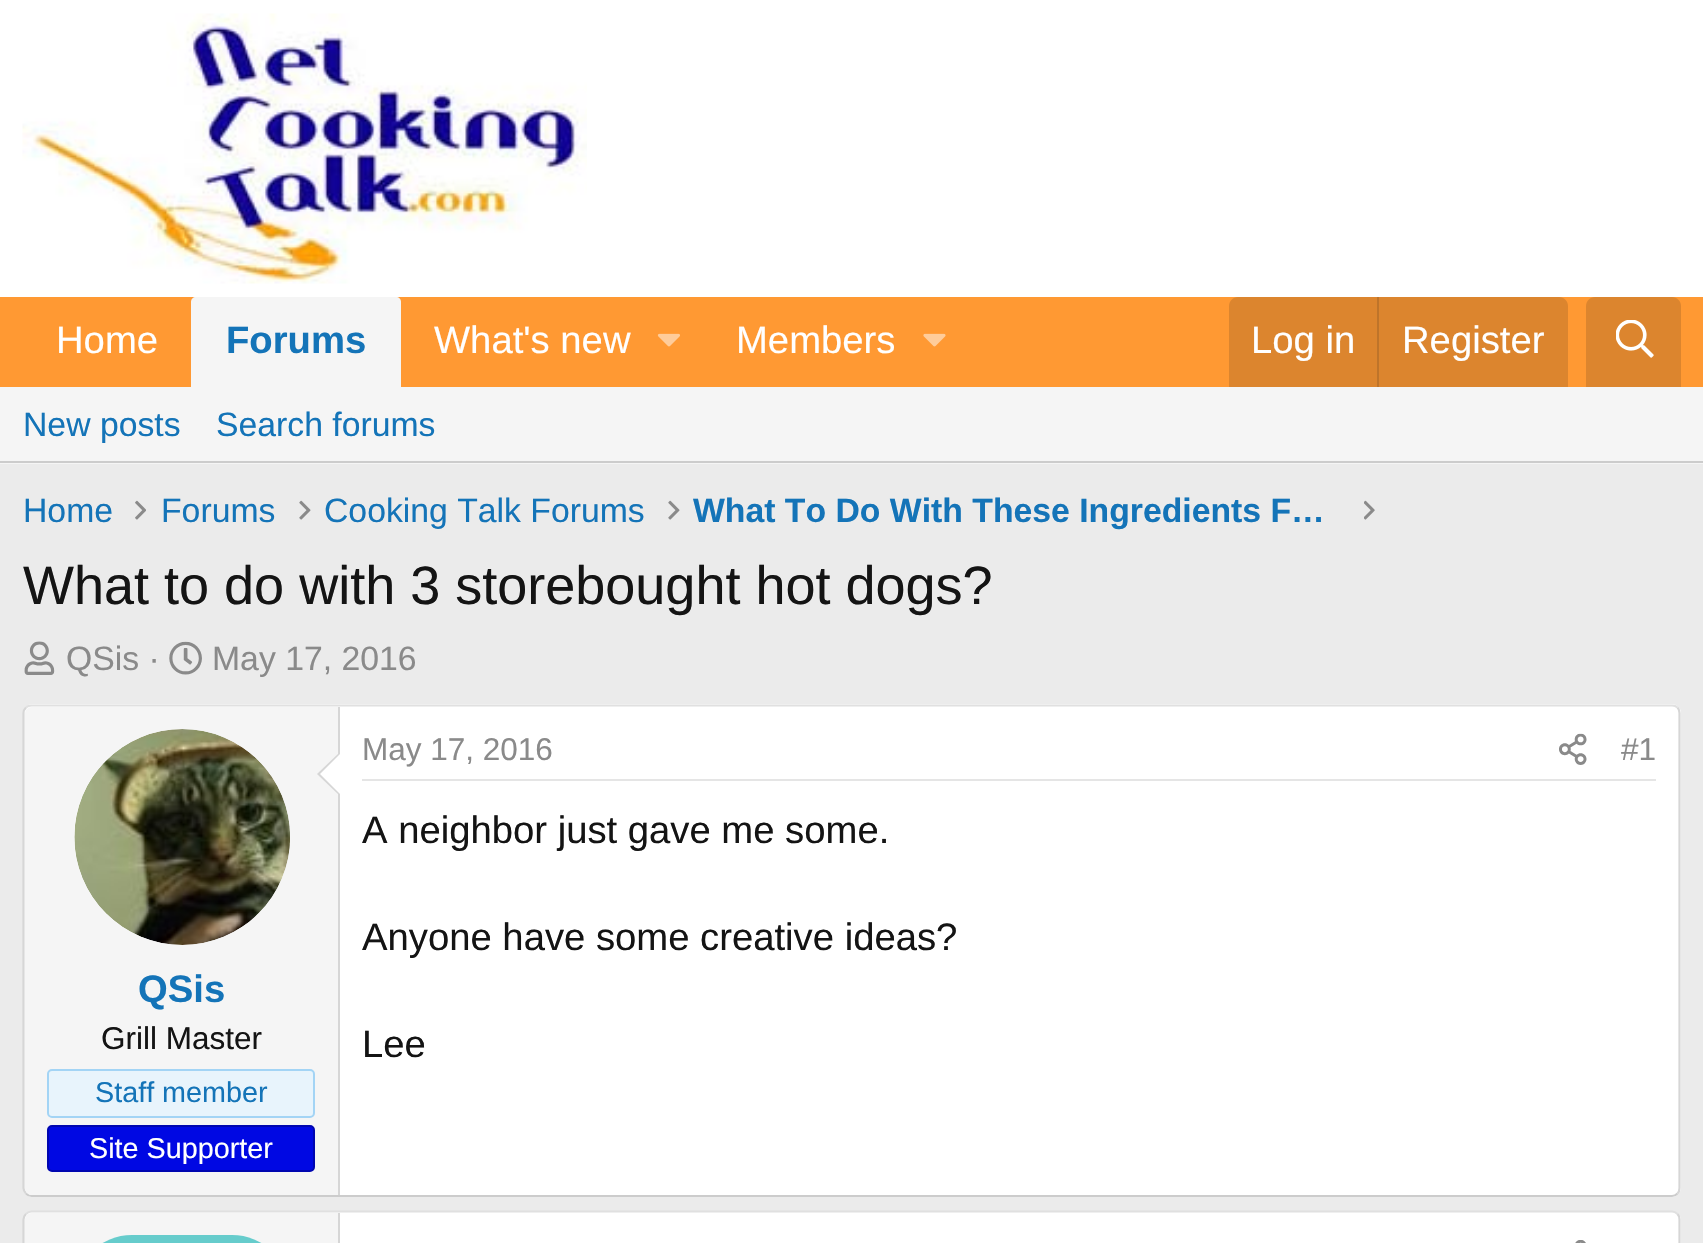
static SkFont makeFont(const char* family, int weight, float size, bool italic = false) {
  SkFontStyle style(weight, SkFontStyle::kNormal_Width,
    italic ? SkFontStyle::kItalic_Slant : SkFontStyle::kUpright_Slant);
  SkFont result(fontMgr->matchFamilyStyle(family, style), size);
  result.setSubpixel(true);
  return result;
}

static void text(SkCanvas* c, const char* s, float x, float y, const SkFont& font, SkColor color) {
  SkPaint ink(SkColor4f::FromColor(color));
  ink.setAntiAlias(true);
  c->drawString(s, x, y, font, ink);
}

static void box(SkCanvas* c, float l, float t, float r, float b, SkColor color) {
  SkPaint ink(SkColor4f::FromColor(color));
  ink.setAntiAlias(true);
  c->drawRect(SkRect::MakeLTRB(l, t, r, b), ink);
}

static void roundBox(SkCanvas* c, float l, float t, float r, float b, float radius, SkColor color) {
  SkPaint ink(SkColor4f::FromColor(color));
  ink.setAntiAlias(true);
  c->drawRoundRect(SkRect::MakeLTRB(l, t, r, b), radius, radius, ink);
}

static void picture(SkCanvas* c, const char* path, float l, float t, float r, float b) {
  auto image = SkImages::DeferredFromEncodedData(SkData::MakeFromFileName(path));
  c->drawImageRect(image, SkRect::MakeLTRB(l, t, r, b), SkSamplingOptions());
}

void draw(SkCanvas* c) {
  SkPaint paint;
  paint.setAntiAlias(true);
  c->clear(0xffebebeb);
  box(c, 0, 0, 1703, 297, 0xffffffff);
  picture(c, "img_01.png", 22, 13, 587, 284);
  box(c, 0, 297, 1703, 387, 0xffff9933);
  SkFont face1 = makeFont("Liberation Sans", 400, 38.25f);
  text(c, "Home", 56, 353, face1, 0xffffffff);
  paint.setColor(0xfff5f5f5);
  c->drawPath(SkPathBuilder().moveTo(196, 297).lineTo(396, 297).cubicTo(399, 297, 401, 299, 401, 302).lineTo(401, 387).lineTo(191, 387).lineTo(191, 302).cubicTo(191, 299, 193, 297, 196, 297).close().detach(), paint);
  SkFont face2 = makeFont("Liberation Sans", 700, 38.25f);
  text(c, "Forums", 226, 353, face2, 0xff1474b8);
  text(c, "What's new", 434, 353, face1, 0xffffffff);
  picture(c, "img_02.png", 657, 333, 680, 347);
  text(c, "Members", 736, 353, face1, 0xffffffff);
  picture(c, "img_03.png", 923, 333, 946, 347);
  paint.setColor(0xffdc852e);
  c->drawPath(SkPathBuilder().moveTo(1238, 297).lineTo(1559, 297).cubicTo(1564, 297, 1568, 301, 1568, 306).lineTo(1568, 387).lineTo(1229, 387).lineTo(1229, 306).cubicTo(1229, 301, 1233, 297, 1238, 297).close().detach(), paint);
  text(c, "Log in", 1251, 353, face1, 0xffffffff);
  box(c, 1377, 297, 1379, 387, 0xffbe742a);
  text(c, "Register", 1402, 353, face1, 0xffffffff);
  c->drawPath(SkPathBuilder().moveTo(1595, 297).lineTo(1672, 297).cubicTo(1677, 297, 1681, 301, 1681, 306).lineTo(1681, 387).lineTo(1586, 387).lineTo(1586, 306).cubicTo(1586, 301, 1590, 297, 1595, 297).close().detach(), paint);
  picture(c, "img_04.png", 1616, 320, 1654, 358);
  box(c, 0, 387, 1703, 464, 0xfff5f5f5);
  box(c, 0, 461, 1703, 463, 0xffcccccc);
  SkFont face3 = makeFont("Liberation Sans", 400, 33.75f);
  text(c, "New posts", 23, 436, face3, 0xff1474b8);
  text(c, "Search forums", 216, 436, face3, 0xff1474b8);
  text(c, "Home", 23, 522, face3, 0xff1474b8);
  picture(c, "img_05.png", 135, 500, 146, 520);
  text(c, "Forums", 161, 522, face3, 0xff1474b8);
  picture(c, "img_06.png", 299, 500, 311, 520);
  text(c, "Cooking Talk Forums", 324, 522, face3, 0xff1474b8);
  picture(c, "img_06.png", 668, 500, 680, 520);
  SkFont face4 = makeFont("Liberation Sans", 700, 33.75f);
  text(c, "What To Do With These Ingredients F…", 693, 522, face4, 0xff1474b8);
  picture(c, "img_07.png", 1364, 500, 1375, 520);
  SkFont face5 = makeFont("Liberation Sans", 400, 54);
  text(c, "What to do with 3 storebought hot dogs?", 23, 604, face5, 0xff141414);
  picture(c, "img_08.png", 24, 641, 55, 675);
  text(c, "QSis ·", 66, 670, face3, 0xff8a8a8a);
  picture(c, "img_09.png", 169, 641, 202, 675);
  text(c, "May 17, 2016", 212, 670, face3, 0xff8a8a8a);
  roundBox(c, 23, 704, 1681, 1197, 9, 0xffffffff);
  paint.setStyle(SkPaint::kStroke_Style);
  paint.setStrokeWidth(2.2f);
  paint.setColor(0xffe0e0e0);
  c->drawPath(SkPathBuilder().moveTo(26, 707.5f).cubicTo(27.5f, 706, 29.5f, 705.5f, 31.5f, 705.5f).lineTo(1672, 705.5f).cubicTo(1674, 705.5f, 1676, 706, 1677.5f, 707.5f).detach(), paint);
  paint.setColor(0xffd6d6d6);
  c->drawPath(SkPathBuilder().moveTo(1677.5f, 707.5f).cubicTo(1679, 709, 1679.5f, 711, 1679.5f, 713).lineTo(1679.5f, 1188).cubicTo(1679.5f, 1190, 1679, 1192, 1677.5f, 1193.5f).detach(), paint);
  paint.setColor(0xffcccccc);
  c->drawPath(SkPathBuilder().moveTo(1677.5f, 1193.5f).cubicTo(1676, 1195, 1674, 1196, 1672, 1196).lineTo(31.5f, 1196).cubicTo(29.5f, 1196, 27.5f, 1195, 26, 1193.5f).detach(), paint);
  paint.setColor(0xffd6d6d6);
  c->drawPath(SkPathBuilder().moveTo(26, 1193.5f).cubicTo(24.5f, 1192, 23.5f, 1190, 23.5f, 1188).lineTo(23.5f, 713).cubicTo(23.5f, 711, 24.5f, 709, 26, 707.5f).detach(), paint);
  paint.setStyle(SkPaint::kFill_Style);
  paint.setColor(0xfff5f5f5);
  c->drawPath(SkPathBuilder().moveTo(32, 707).lineTo(340, 707).lineTo(340, 1195).lineTo(32, 1195).cubicTo(28, 1195, 25, 1192, 25, 1188).lineTo(25, 714).cubicTo(25, 710, 28, 707, 32, 707).close().detach(), paint);
  box(c, 338, 707, 340, 1195, 0xffd6d6d6);
  paint.setColor(0xffffffff);
  c->drawCircle(182, 837, 108, paint);
  picture(c, "img_10.png", 74, 729, 290, 945);
  paint.setColor(0xffd6d6d6);
  c->drawPath(SkPathBuilder().moveTo(340, 752).lineTo(340, 796).lineTo(317, 774).close().detach(), paint);
  paint.setColor(0xffffffff);
  c->drawPath(SkPathBuilder().moveTo(340, 754).lineTo(340, 794).lineTo(320, 774).close().detach(), paint);
  text(c, "QSis", 138, 1002, face2, 0xff1474b8);
  SkFont face6 = makeFont("Liberation Sans", 400, 31.5f);
  text(c, "Grill Master", 101, 1049, face6, 0xff141414);
  paint.setColor(0xffe8f4fc);
  c->drawRoundRect(SkRect::MakeLTRB(48, 1070, 314, 1117), 4, 4, paint);
  paint.setStyle(SkPaint::kStroke_Style);
  paint.setStrokeWidth(2);
  paint.setColor(0xffa3d4f5);
  c->drawRoundRect(SkRect::MakeLTRB(48, 1070, 314, 1117), 4, 4, paint);
  SkFont face7 = makeFont("Liberation Sans", 400, 28.75f);
  text(c, "Staff member", 95, 1102, face7, 0xff1474b8);
  paint.setStyle(SkPaint::kFill_Style);
  paint.setColor(0xff0008e3);
  c->drawRoundRect(SkRect::MakeLTRB(48, 1126, 314, 1171), 4, 4, paint);
  paint.setStyle(SkPaint::kStroke_Style);
  paint.setColor(0xff0006b0);
  c->drawRoundRect(SkRect::MakeLTRB(48, 1126, 314, 1171), 4, 4, paint);
  text(c, "Site Supporter", 89, 1158, face7, 0xffffffff);
  box(c, 362, 779, 1656, 781, 0xffe5e5e5);
  text(c, "May 17, 2016", 362, 760, face6, 0xff8a8a8a);
  picture(c, "img_11.png", 1559, 733, 1587, 765);
  text(c, "#1", 1621, 760, face6, 0xff8a8a8a);
  text(c, "A neighbor just gave me some.", 362, 843, face1, 0xff141414);
  text(c, "Anyone have some creative ideas?", 362, 950, face1, 0xff141414);
  text(c, "Lee", 362, 1057, face1, 0xff141414);
  roundBox(c, 23, 1211, 1681, 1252, 9, 0xffffffff);
  paint.setStrokeWidth(2.2f);
  paint.setColor(0xffe0e0e0);
  c->drawPath(SkPathBuilder().moveTo(26, 1214).cubicTo(27.5f, 1212.5f, 29.5f, 1211.5f, 31.5f, 1211.5f).lineTo(1672, 1211.5f).cubicTo(1674, 1211.5f, 1676, 1212.5f, 1677.5f, 1214).detach(), paint);
  paint.setColor(0xffd6d6d6);
  c->drawPath(SkPathBuilder().moveTo(1677.5f, 1214).cubicTo(1679, 1215.5f, 1679.5f, 1217.5f, 1679.5f, 1219.5f).lineTo(1679.5f, 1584).cubicTo(1679.5f, 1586, 1679, 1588, 1677.5f, 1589.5f).detach(), paint);
  c->drawPath(SkPathBuilder().moveTo(26, 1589.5f).cubicTo(24.5f, 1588, 23.5f, 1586, 23.5f, 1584).lineTo(23.5f, 1219.5f).cubicTo(23.5f, 1217.5f, 24.5f, 1215.5f, 26, 1214).detach(), paint);
  paint.setStyle(SkPaint::kFill_Style);
  paint.setColor(0xfff5f5f5);
  c->drawPath(SkPathBuilder().moveTo(32, 1213).lineTo(340, 1213).lineTo(340, 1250).lineTo(32, 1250).cubicTo(28, 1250, 25, 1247, 25, 1243).lineTo(25, 1220).cubicTo(25, 1216, 28, 1213, 32, 1213).close().detach(), paint);
  box(c, 338, 1213, 340, 1243, 0xffd6d6d6);
  roundBox(c, 74, 1235, 290, 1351, 108, 0xff66cccc);
  picture(c, "img_12.png", 1575, 1240, 1586, 1243);
}
